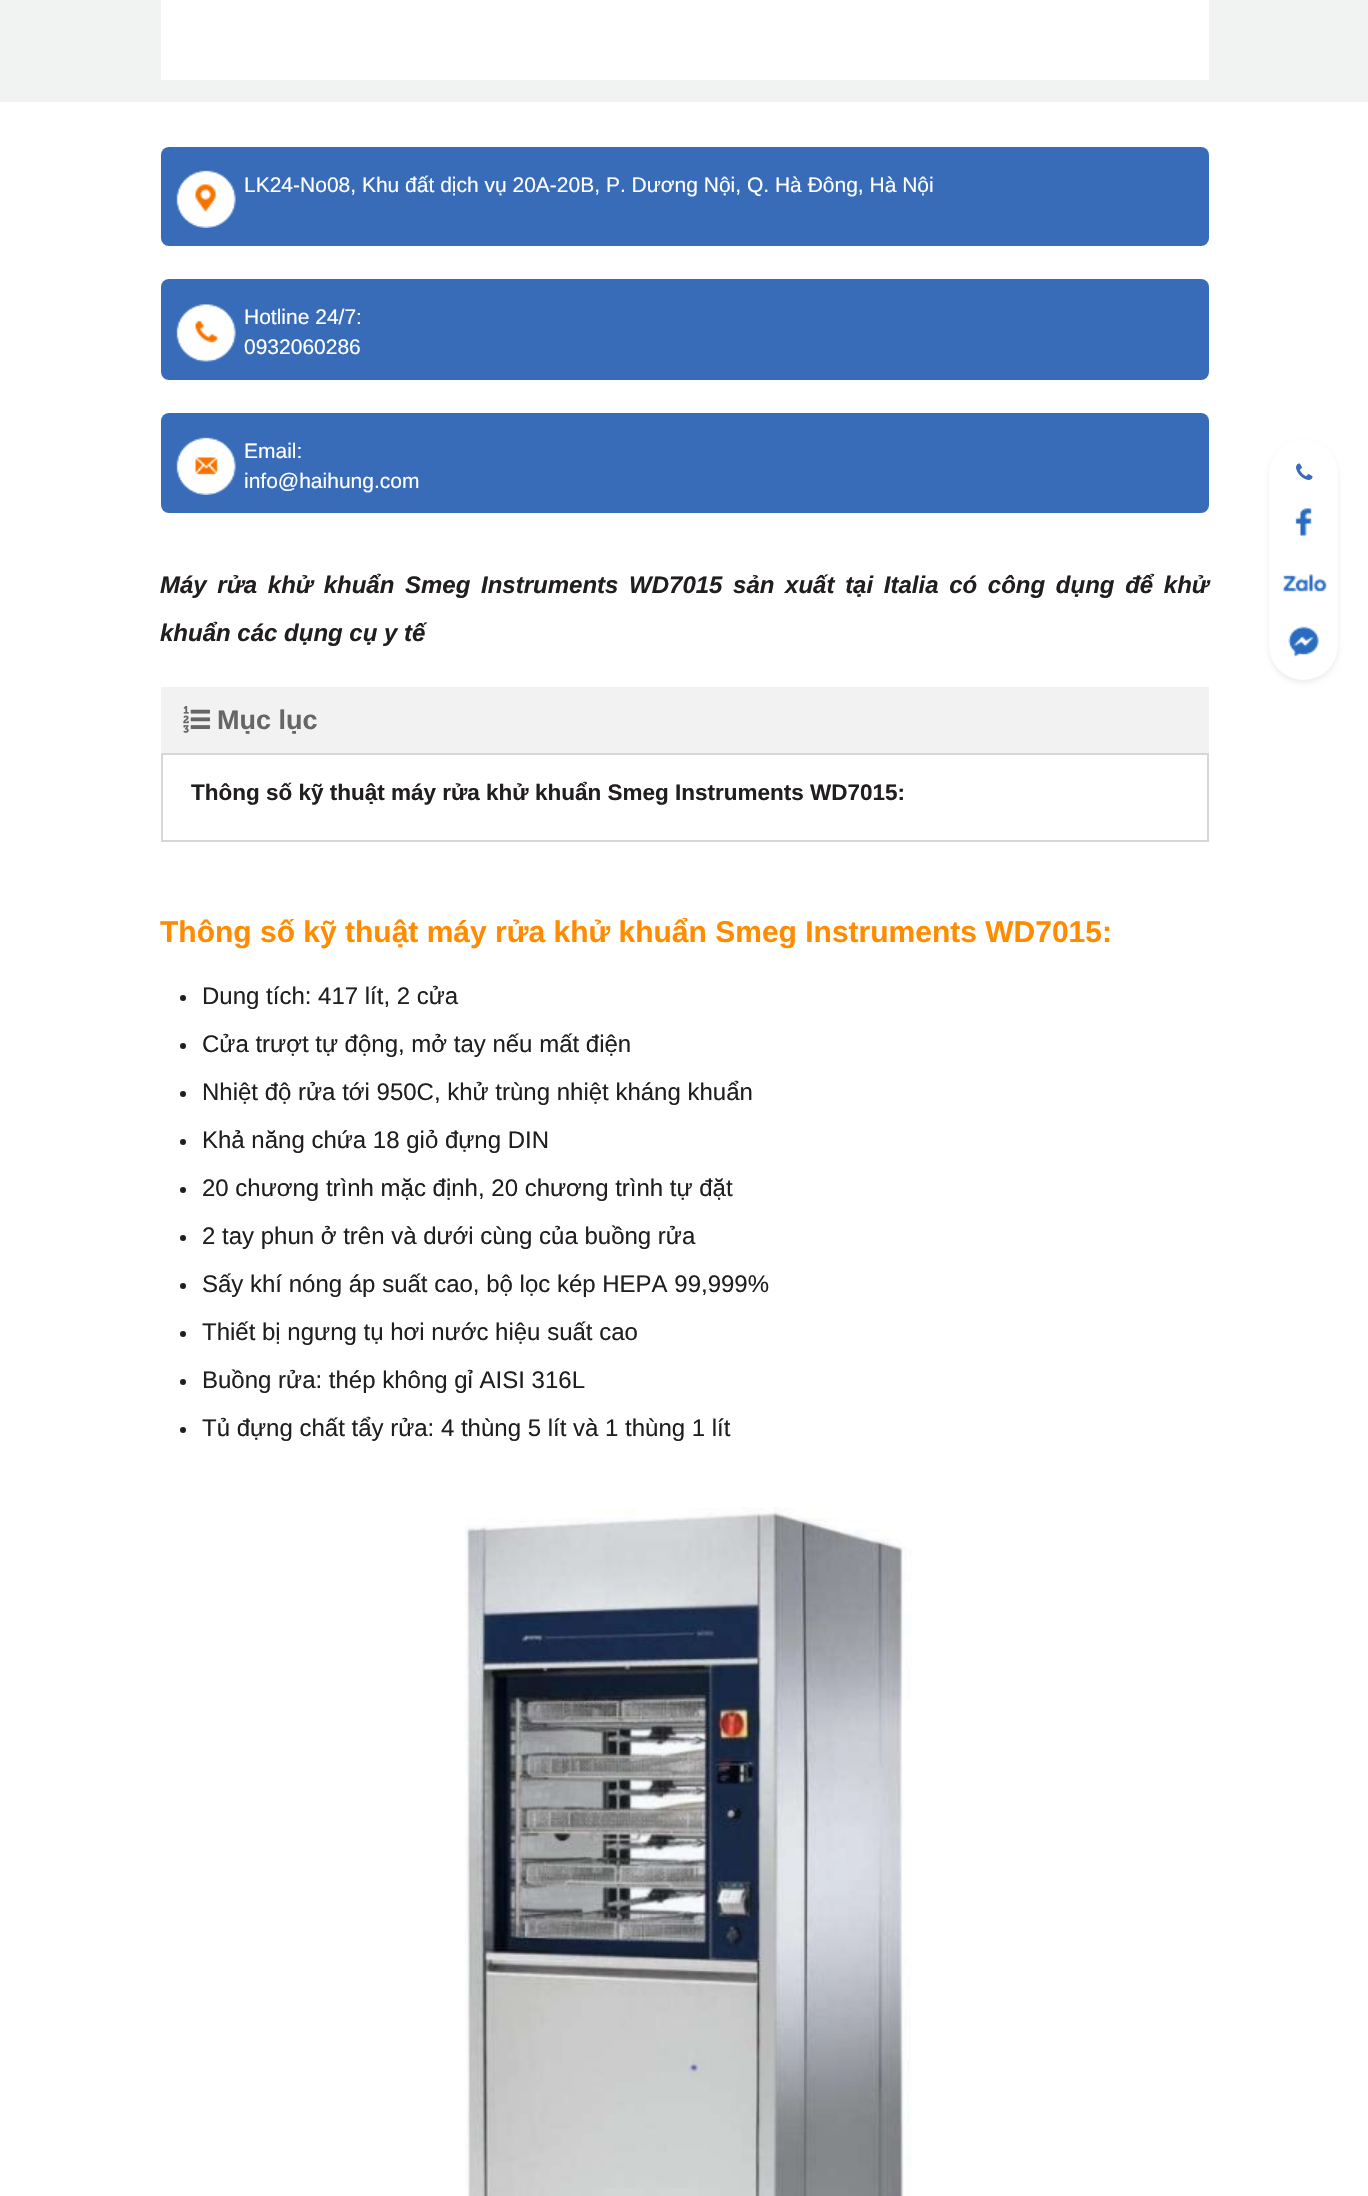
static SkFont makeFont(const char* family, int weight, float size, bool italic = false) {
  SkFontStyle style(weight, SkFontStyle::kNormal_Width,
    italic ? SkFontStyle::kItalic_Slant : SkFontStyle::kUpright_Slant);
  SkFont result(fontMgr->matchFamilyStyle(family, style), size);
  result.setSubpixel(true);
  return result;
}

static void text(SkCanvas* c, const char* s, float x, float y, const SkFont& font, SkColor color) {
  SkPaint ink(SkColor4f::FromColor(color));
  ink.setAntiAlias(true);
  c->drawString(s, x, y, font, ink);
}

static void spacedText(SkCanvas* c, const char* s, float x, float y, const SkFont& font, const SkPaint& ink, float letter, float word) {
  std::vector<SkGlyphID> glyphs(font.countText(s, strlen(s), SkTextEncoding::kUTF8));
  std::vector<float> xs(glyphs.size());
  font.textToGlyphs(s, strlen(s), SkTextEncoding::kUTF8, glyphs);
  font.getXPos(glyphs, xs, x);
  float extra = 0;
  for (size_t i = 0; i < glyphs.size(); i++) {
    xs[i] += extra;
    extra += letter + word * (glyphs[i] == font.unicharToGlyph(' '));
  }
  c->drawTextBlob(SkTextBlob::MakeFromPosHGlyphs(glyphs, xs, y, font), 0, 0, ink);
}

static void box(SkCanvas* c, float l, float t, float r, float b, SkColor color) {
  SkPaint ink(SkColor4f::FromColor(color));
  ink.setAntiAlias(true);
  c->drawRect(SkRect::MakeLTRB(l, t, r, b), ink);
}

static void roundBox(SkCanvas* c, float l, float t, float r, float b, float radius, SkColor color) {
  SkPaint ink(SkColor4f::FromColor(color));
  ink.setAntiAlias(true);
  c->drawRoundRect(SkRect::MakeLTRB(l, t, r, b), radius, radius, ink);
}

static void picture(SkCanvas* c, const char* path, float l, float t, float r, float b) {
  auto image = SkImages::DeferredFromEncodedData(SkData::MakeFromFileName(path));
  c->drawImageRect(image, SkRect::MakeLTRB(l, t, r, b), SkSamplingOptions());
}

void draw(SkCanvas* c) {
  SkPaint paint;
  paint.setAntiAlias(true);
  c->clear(0xffffffff);
  box(c, 0, 0, 1368, 102, 0xfff1f2f2);
  box(c, 161, 0, 1209, 80, 0xffffffff);
  roundBox(c, 161, 147, 1209, 246, 8, 0xff386cb9);
  picture(c, "img_01.png", 176, 170, 236, 228);
  SkFont face1 = makeFont("Liberation Sans", 400, 21);
  text(c, "LK24-No08, Khu đất dịch vụ 20A-20B, P. Dương Nội, Q. Hà Đông, Hà Nội", 244, 192, face1, 0xffffffff);
  roundBox(c, 161, 279, 1209, 380, 8, 0xff386cb9);
  picture(c, "img_02.png", 176, 304, 236, 362);
  text(c, "Hotline 24/7:", 244, 324, face1, 0xffffffff);
  text(c, "0932060286", 244, 354, face1, 0xffffffff);
  roundBox(c, 161, 413, 1209, 513, 8, 0xff386cb9);
  picture(c, "img_03.png", 176, 437, 236, 495);
  text(c, "Email:", 244, 458, face1, 0xffffffff);
  text(c, "info@haihung.com", 244, 488, face1, 0xffffffff);
  SkFont face2 = makeFont("Liberation Sans", 700, 24, true);
  paint.setColor(0xff211e1f);
  spacedText(c, "Máy rửa khử khuẩn Smeg Instruments WD7015 sản xuất tại Italia có công dụng để khử", 160, 593, face2, paint, 0, 4);
  text(c, "khuẩn các dụng cụ y tế", 160, 641, face2, 0xff211e1f);
  box(c, 161, 687, 1209, 753, 0xfff2f2f2);
  picture(c, "img_04.png", 183, 706, 210, 733);
  SkFont face3 = makeFont("Liberation Sans", 700, 27);
  text(c, "Mục lục", 217, 729, face3, 0xff666666);
  paint.setStyle(SkPaint::kStroke_Style);
  paint.setStrokeWidth(2);
  paint.setColor(0xffd7d7d7);
  c->drawRect(SkRect::MakeLTRB(162, 754, 1208, 841), paint);
  SkFont face4 = makeFont("Liberation Sans", 700, 22.5f);
  text(c, "Thông số kỹ thuật máy rửa khử khuẩn Smeg Instruments WD7015:", 191, 800, face4, 0xff211e1f);
  SkFont face5 = makeFont("Liberation Sans", 700, 30);
  text(c, "Thông số kỹ thuật máy rửa khử khuẩn Smeg Instruments WD7015:", 160, 942, face5, 0xffff8c00);
  paint.setStyle(SkPaint::kFill_Style);
  paint.setColor(0xff211e1f);
  c->drawCircle(183, 998, 3, paint);
  SkFont face6 = makeFont("Liberation Sans", 400, 24);
  text(c, "Dung tích: 417 lít, 2 cửa", 202, 1004, face6, 0xff211e1f);
  c->drawCircle(183, 1046, 3, paint);
  text(c, "Cửa trượt tự động, mở tay nếu mất điện", 202, 1052, face6, 0xff211e1f);
  c->drawCircle(183, 1094, 3, paint);
  text(c, "Nhiệt độ rửa tới 950C, khử trùng nhiệt kháng khuẩn", 202, 1100, face6, 0xff211e1f);
  c->drawCircle(183, 1142, 3, paint);
  text(c, "Khả năng chứa 18 giỏ đựng DIN", 202, 1148, face6, 0xff211e1f);
  c->drawCircle(183, 1190, 3, paint);
  text(c, "20 chương trình mặc định, 20 chương trình tự đặt", 202, 1196, face6, 0xff211e1f);
  c->drawCircle(183, 1238, 3, paint);
  text(c, "2 tay phun ở trên và dưới cùng của buồng rửa", 202, 1244, face6, 0xff211e1f);
  c->drawCircle(183, 1286, 3, paint);
  text(c, "Sấy khí nóng áp suất cao, bộ lọc kép HEPA 99,999%", 202, 1292, face6, 0xff211e1f);
  c->drawCircle(183, 1334, 3, paint);
  text(c, "Thiết bị ngưng tụ hơi nước hiệu suất cao", 202, 1340, face6, 0xff211e1f);
  c->drawCircle(183, 1382, 3, paint);
  text(c, "Buồng rửa: thép không gỉ AISI 316L", 202, 1388, face6, 0xff211e1f);
  c->drawCircle(183, 1430, 3, paint);
  text(c, "Tủ đựng chất tẩy rửa: 4 thùng 5 lít và 1 thùng 1 lít", 202, 1436, face6, 0xff211e1f);
  picture(c, "img_05.png", 465, 1507, 912, 2196);
  paint.setColor(0x12000000);
  paint.setMaskFilter(SkMaskFilter::MakeBlur(kNormal_SkBlurStyle, 2.5f));
  c->drawRoundRect(SkRect::MakeLTRB(1269, 443, 1338, 683), 34.5f, 34.5f, paint);
  paint.setMaskFilter(nullptr);
  roundBox(c, 1269, 440, 1338, 680, 34.5f, 0xffffffff);
  picture(c, "img_06.png", 1296, 463, 1313, 480);
  picture(c, "img_07.png", 1295, 508, 1312, 536);
  picture(c, "img_08.png", 1282, 574, 1327, 592);
  picture(c, "img_09.png", 1288, 626, 1319, 658);
}
